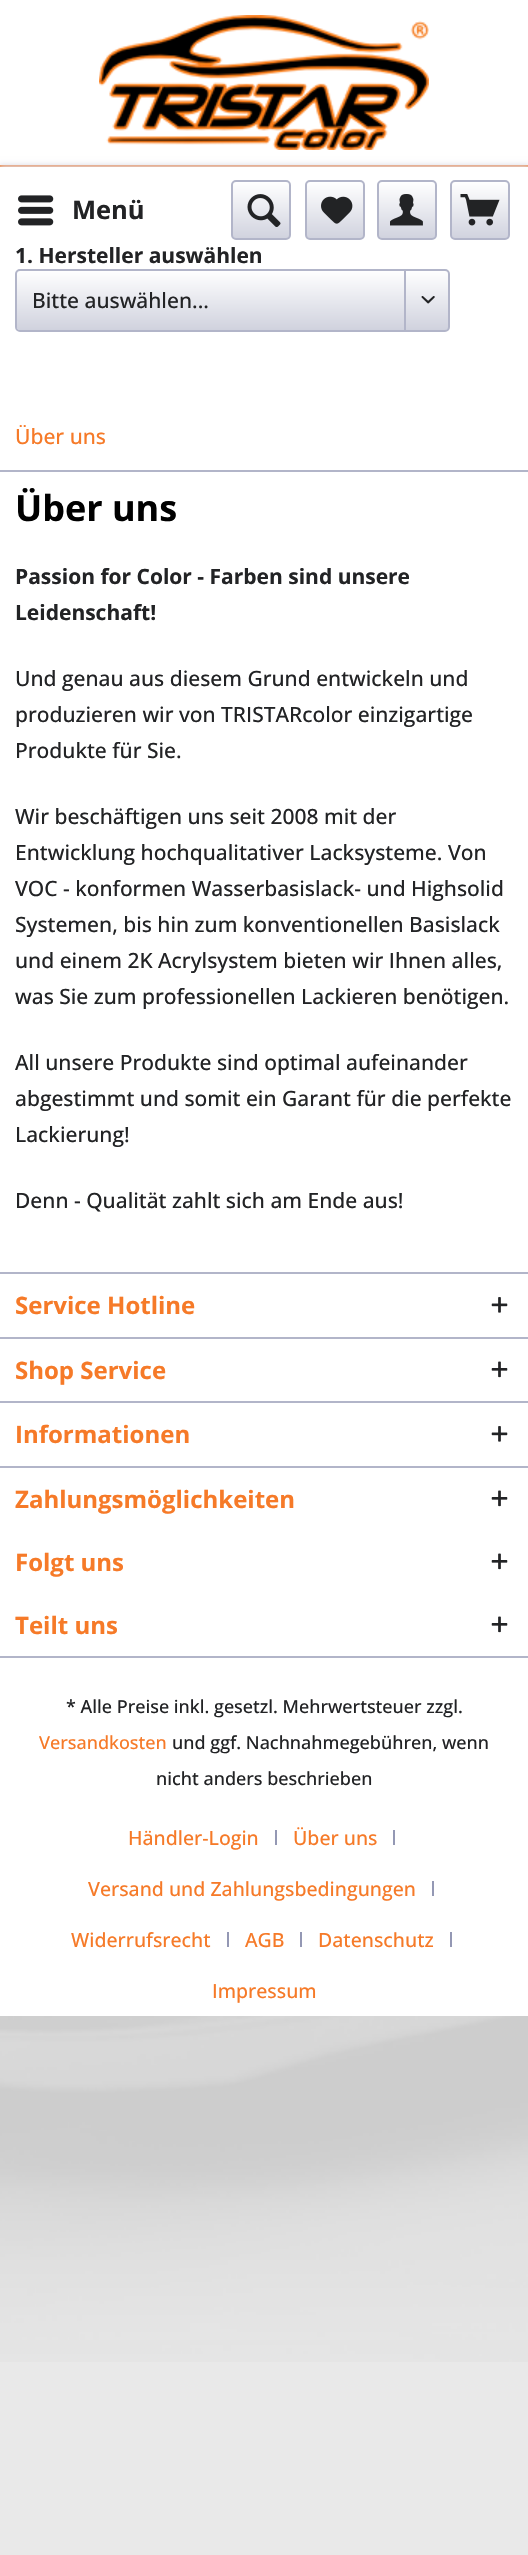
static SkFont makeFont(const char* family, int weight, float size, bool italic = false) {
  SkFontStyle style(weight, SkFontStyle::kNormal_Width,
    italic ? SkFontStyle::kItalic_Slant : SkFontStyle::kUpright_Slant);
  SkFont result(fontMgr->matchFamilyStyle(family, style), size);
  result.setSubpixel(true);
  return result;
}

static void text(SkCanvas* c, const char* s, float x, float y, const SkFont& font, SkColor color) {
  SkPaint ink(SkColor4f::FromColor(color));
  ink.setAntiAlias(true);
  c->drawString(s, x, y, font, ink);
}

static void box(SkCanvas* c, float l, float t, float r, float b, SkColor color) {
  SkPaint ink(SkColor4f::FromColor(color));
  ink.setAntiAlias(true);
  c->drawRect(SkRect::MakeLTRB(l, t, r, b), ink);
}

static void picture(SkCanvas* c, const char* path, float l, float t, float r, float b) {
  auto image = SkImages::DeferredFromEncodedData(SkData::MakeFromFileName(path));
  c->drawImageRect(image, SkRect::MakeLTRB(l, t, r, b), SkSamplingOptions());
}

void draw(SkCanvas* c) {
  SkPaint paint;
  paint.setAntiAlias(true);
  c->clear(0xffe9e9e9);
  picture(c, "img_01.png", 0, 2016, 528, 2362);
  box(c, 0, 0, 528, 165, 0xffffffff);
  box(c, 0, 165, 528, 167, 0xfff67a28);
  picture(c, "img_02.png", 99, 15, 429, 150);
  paint.setColor(0xffdadae5);
  paint.setMaskFilter(SkMaskFilter::MakeBlur(kNormal_SkBlurStyle, 3));
  c->drawRect(SkRect::MakeLTRB(-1, 165, 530, 405), paint);
  paint.setMaskFilter(nullptr);
  box(c, 0, 167, 528, 1272, 0xffffffff);
  picture(c, "img_03.png", 18, 195, 54, 226);
  SkFont face1 = makeFont("Open Sans", 700, 25.5f);
  text(c, "Menü", 72, 219, face1, 0xff222325);
  {
    const SkColor colors[] = {0xffffffff, 0xffd0d2de};
    const float stops[] = {0, 1};
    const SkPoint ends[] = {{261, 182}, {261, 239}};
    paint.setShader(SkGradientShader::MakeLinear(ends, colors, stops, 2, SkTileMode::kClamp));
    paint.setAlpha(255);
  }
  c->drawRoundRect(SkRect::MakeLTRB(233, 182, 290, 239), 3, 3, paint);
  paint.setStyle(SkPaint::kStroke_Style);
  paint.setStrokeWidth(2);
  paint.setShader(nullptr);
  paint.setColor(0xffb2b5c9);
  c->drawRoundRect(SkRect::MakeLTRB(232, 181, 290, 239), 4, 4, paint);
  picture(c, "img_04.png", 247, 194, 281, 227);
  paint.setStyle(SkPaint::kFill_Style);
  {
    const SkColor colors[] = {0xffffffff, 0xffd0d2de};
    const float stops[] = {0, 1};
    const SkPoint ends[] = {{335, 182}, {335, 239}};
    paint.setShader(SkGradientShader::MakeLinear(ends, colors, stops, 2, SkTileMode::kClamp));
    paint.setAlpha(255);
  }
  c->drawRoundRect(SkRect::MakeLTRB(306, 182, 363, 239), 3, 3, paint);
  paint.setStyle(SkPaint::kStroke_Style);
  paint.setShader(nullptr);
  paint.setColor(0xffb2b5c9);
  c->drawRoundRect(SkRect::MakeLTRB(306, 181, 364, 239), 4, 4, paint);
  picture(c, "img_05.png", 321, 196, 353, 224);
  paint.setStyle(SkPaint::kFill_Style);
  {
    const SkColor colors[] = {0xffffffff, 0xffd0d2de};
    const float stops[] = {0, 1};
    const SkPoint ends[] = {{407, 182}, {407, 239}};
    paint.setShader(SkGradientShader::MakeLinear(ends, colors, stops, 2, SkTileMode::kClamp));
    paint.setAlpha(255);
  }
  c->drawRoundRect(SkRect::MakeLTRB(378, 182, 435, 239), 3, 3, paint);
  paint.setStyle(SkPaint::kStroke_Style);
  paint.setShader(nullptr);
  paint.setColor(0xffb2b5c9);
  c->drawRoundRect(SkRect::MakeLTRB(378, 181, 436, 239), 4, 4, paint);
  picture(c, "img_06.png", 390, 194, 423, 226);
  paint.setStyle(SkPaint::kFill_Style);
  {
    const SkColor colors[] = {0xffffffff, 0xffd0d2de};
    const float stops[] = {0, 1};
    const SkPoint ends[] = {{480, 182}, {480, 239}};
    paint.setShader(SkGradientShader::MakeLinear(ends, colors, stops, 2, SkTileMode::kClamp));
    paint.setAlpha(255);
  }
  c->drawRoundRect(SkRect::MakeLTRB(452, 182, 509, 239), 3, 3, paint);
  paint.setStyle(SkPaint::kStroke_Style);
  paint.setShader(nullptr);
  paint.setColor(0xffb2b5c9);
  c->drawRoundRect(SkRect::MakeLTRB(451, 181, 509, 239), 4, 4, paint);
  picture(c, "img_07.png", 460, 194, 500, 226);
  SkFont face2 = makeFont("Open Sans", 700, 21);
  text(c, "1. Hersteller auswählen", 15, 263, face2, 0xff222325);
  paint.setStyle(SkPaint::kFill_Style);
  {
    const SkColor colors[] = {0xffffffff, 0xffd0d2de};
    const float stops[] = {0, 1};
    const SkPoint ends[] = {{233, 270}, {233, 330}};
    paint.setShader(SkGradientShader::MakeLinear(ends, colors, stops, 2, SkTileMode::kClamp));
    paint.setAlpha(255);
  }
  c->drawRoundRect(SkRect::MakeLTRB(17, 270, 449, 330), 3, 3, paint);
  paint.setStyle(SkPaint::kStroke_Style);
  paint.setShader(nullptr);
  paint.setColor(0xffb2b5c9);
  c->drawRoundRect(SkRect::MakeLTRB(16, 270, 449, 331), 4, 4, paint);
  SkFont face3 = makeFont("Open Sans", 500, 21);
  text(c, "Bitte auswählen...", 32, 308, face3, 0xff222325);
  box(c, 404, 270, 406, 330, 0xffb2b5c9);
  picture(c, "img_08.png", 421, 296, 435, 304);
  box(c, 0, 470, 528, 472, 0xffb2b5c9);
  text(c, "Über uns", 15, 444, face3, 0xfff67a28);
  SkFont face4 = makeFont("Open Sans", 700, 36);
  text(c, "Über uns", 15, 521, face4, 0xff000000);
  text(c, "Passion for Color - Farben sind unsere", 15, 584, face2, 0xff222325);
  text(c, "Leidenschaft!", 15, 620, face2, 0xff222325);
  text(c, "Und genau aus diesem Grund entwickeln und", 15, 686, face3, 0xff222325);
  text(c, "produzieren wir von TRISTARcolor einzigartige", 15, 722, face3, 0xff222325);
  text(c, "Produkte für Sie.", 15, 758, face3, 0xff222325);
  text(c, "Wir beschäftigen uns seit 2008 mit der", 15, 824, face3, 0xff222325);
  text(c, "Entwicklung hochqualitativer Lacksysteme. Von", 15, 860, face3, 0xff222325);
  text(c, "VOC - konformen Wasserbasislack- und Highsolid", 15, 896, face3, 0xff222325);
  text(c, "Systemen, bis hin zum konventionellen Basislack", 15, 932, face3, 0xff222325);
  text(c, "und einem 2K Acrylsystem bieten wir Ihnen alles,", 15, 968, face3, 0xff222325);
  text(c, "was Sie zum professionellen Lackieren benötigen.", 15, 1004, face3, 0xff222325);
  text(c, "All unsere Produkte sind optimal aufeinander", 15, 1070, face3, 0xff222325);
  text(c, "abgestimmt und somit ein Garant für die perfekte", 15, 1106, face3, 0xff222325);
  text(c, "Lackierung!", 15, 1142, face3, 0xff222325);
  text(c, "Denn - Qualität zahlt sich am Ende aus!", 15, 1208, face3, 0xff222325);
  box(c, 0, 1274, 528, 2016, 0xffffffff);
  box(c, 0, 1272, 528, 1274, 0xffb2b5c9);
  SkFont face5 = makeFont("Open Sans", 700, 24);
  text(c, "Service Hotline", 15, 1314, face5, 0xfff67a28);
  picture(c, "img_09.png", 491, 1297, 508, 1313);
  box(c, 0, 1337, 528, 1339, 0xffb2b5c9);
  text(c, "Shop Service", 15, 1379, face5, 0xfff67a28);
  picture(c, "img_10.png", 491, 1361, 508, 1378);
  box(c, 0, 1401, 528, 1403, 0xffb2b5c9);
  text(c, "Informationen", 15, 1443, face5, 0xfff67a28);
  picture(c, "img_09.png", 491, 1426, 508, 1442);
  box(c, 0, 1466, 528, 1468, 0xffb2b5c9);
  box(c, 0, 1656, 528, 1658, 0xffb2b5c9);
  text(c, "Zahlungsmöglichkeiten", 15, 1508, face5, 0xfff67a28);
  picture(c, "img_10.png", 491, 1490, 508, 1507);
  text(c, "Folgt uns", 15, 1571, face5, 0xfff67a28);
  picture(c, "img_10.png", 491, 1553, 508, 1570);
  text(c, "Teilt uns", 15, 1634, face5, 0xfff67a28);
  picture(c, "img_10.png", 491, 1616, 508, 1633);
  SkFont face6 = makeFont("Open Sans", 500, 18);
  text(c, "* Alle Preise inkl. gesetzl. Mehrwertsteuer zzgl.", 66, 1713, face6, 0xff222325);
  text(c, "Versandkosten", 39, 1749, face6, 0xfff67a28);
  text(c, "und ggf. Nachnahmegebühren, wenn", 172, 1749, face6, 0xff222325);
  text(c, "nicht anders beschrieben", 156, 1785, face6, 0xff222325);
  SkFont face7 = makeFont("Open Sans", 500, 19.5f);
  text(c, "Händler-Login", 128, 1845, face7, 0xfff67a28);
  box(c, 275, 1830, 277, 1845, 0xff9498b4);
  text(c, "Über uns", 293, 1845, face7, 0xfff67a28);
  box(c, 393, 1830, 395, 1845, 0xff9498b4);
  text(c, "Versand und Zahlungsbedingungen", 88, 1896, face7, 0xfff67a28);
  box(c, 432, 1881, 434, 1896, 0xff9498b4);
  text(c, "Widerrufsrecht", 71, 1947, face7, 0xfff67a28);
  box(c, 227, 1932, 229, 1947, 0xff9498b4);
  text(c, "AGB", 245, 1947, face7, 0xfff67a28);
  box(c, 300, 1932, 302, 1947, 0xff9498b4);
  text(c, "Datenschutz", 318, 1947, face7, 0xfff67a28);
  box(c, 450, 1932, 452, 1947, 0xff9498b4);
  text(c, "Impressum", 212, 1998, face7, 0xfff67a28);
}
